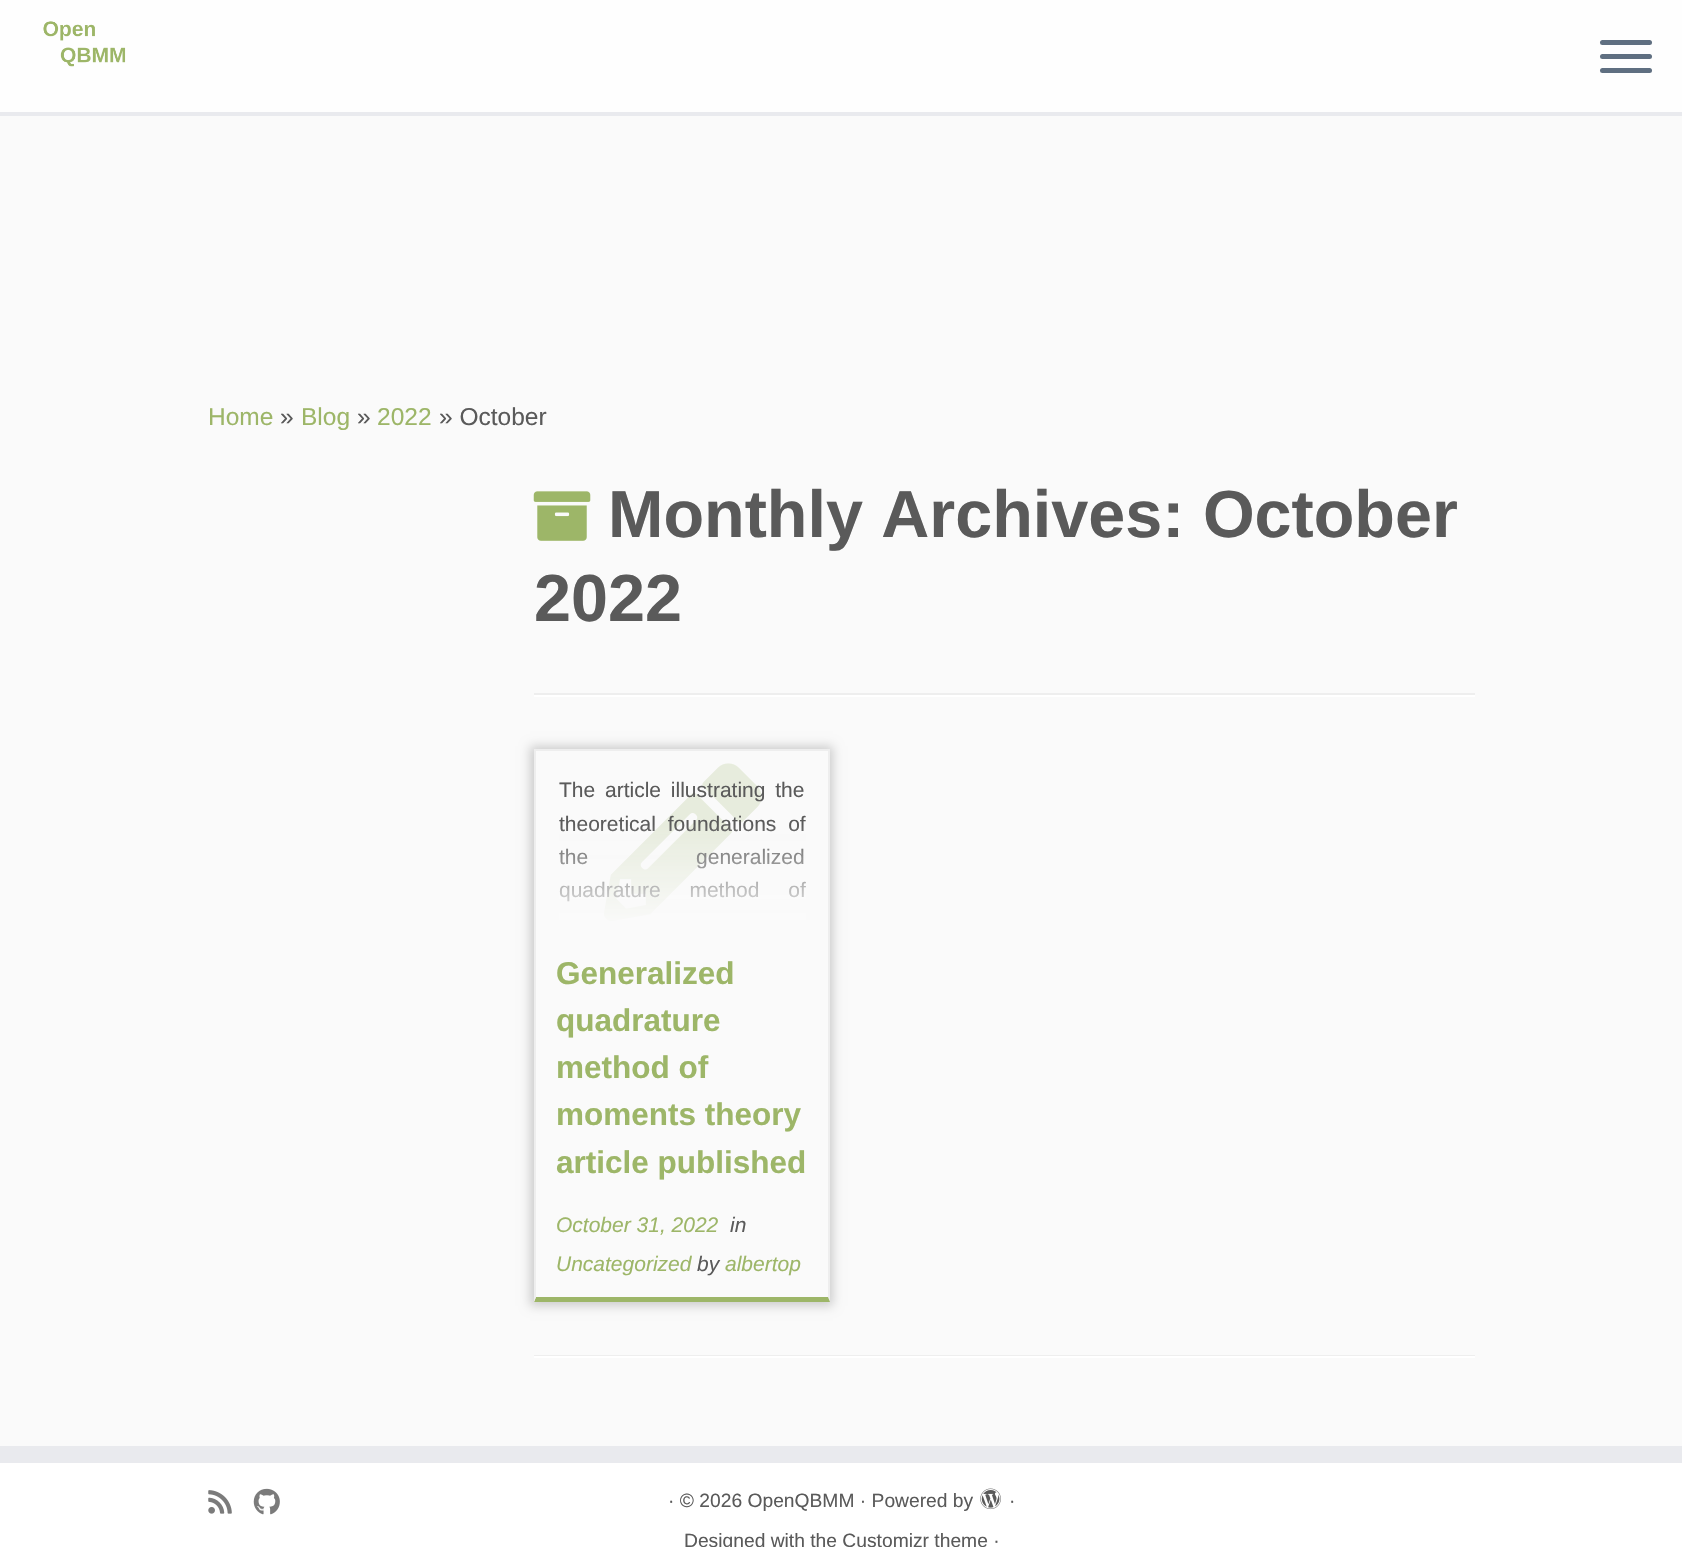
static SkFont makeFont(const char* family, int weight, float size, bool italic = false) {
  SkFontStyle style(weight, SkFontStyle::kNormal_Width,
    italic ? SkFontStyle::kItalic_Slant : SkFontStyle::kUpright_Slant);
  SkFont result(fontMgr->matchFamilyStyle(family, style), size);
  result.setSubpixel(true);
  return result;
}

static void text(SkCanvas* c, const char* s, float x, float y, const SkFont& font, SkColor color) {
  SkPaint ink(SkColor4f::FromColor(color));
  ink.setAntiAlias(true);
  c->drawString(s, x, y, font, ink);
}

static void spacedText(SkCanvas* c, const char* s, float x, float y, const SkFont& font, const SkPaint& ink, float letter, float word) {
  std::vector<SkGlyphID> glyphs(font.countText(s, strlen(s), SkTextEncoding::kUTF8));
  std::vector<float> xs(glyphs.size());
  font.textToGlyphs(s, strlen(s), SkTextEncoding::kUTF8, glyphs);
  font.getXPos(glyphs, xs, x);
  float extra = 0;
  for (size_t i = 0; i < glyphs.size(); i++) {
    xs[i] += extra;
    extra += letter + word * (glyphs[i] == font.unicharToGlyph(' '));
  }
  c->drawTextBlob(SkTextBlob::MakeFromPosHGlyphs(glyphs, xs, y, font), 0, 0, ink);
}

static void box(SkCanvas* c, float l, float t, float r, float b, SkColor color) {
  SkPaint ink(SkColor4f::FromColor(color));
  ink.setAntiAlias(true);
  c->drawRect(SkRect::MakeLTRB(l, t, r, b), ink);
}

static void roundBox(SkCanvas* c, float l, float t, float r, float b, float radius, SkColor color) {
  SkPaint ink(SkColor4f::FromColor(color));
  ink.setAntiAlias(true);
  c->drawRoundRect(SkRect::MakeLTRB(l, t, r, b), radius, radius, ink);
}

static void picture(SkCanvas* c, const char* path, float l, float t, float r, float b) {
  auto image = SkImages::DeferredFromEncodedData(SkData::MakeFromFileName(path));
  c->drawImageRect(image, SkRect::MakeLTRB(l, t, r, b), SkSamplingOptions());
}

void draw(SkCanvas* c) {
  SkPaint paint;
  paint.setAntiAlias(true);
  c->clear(0xfffafafa);
  box(c, 0, 0, 1682, 112, 0xfffefefe);
  box(c, 0, 112, 1682, 116, 0xffe9eaee);
  picture(c, "img_01.png", 43, 21, 126, 67);
  roundBox(c, 1600, 40, 1652, 45, 2.5f, 0xff5f6f81);
  roundBox(c, 1600, 54, 1652, 59, 2.5f, 0xff5f6f81);
  roundBox(c, 1600, 68, 1652, 73, 2.5f, 0xff5f6f81);
  SkFont face1 = makeFont("Liberation Sans", 400, 24.5f);
  text(c, "Home", 208, 425, face1, 0xff9db668);
  text(c, "»", 280, 425, face1, 0xff5a5a5a);
  text(c, "Blog", 301, 425, face1, 0xff9db668);
  text(c, "»", 357, 425, face1, 0xff5a5a5a);
  text(c, "2022", 377, 425, face1, 0xff9db668);
  text(c, "» October", 439, 425, face1, 0xff5a5a5a);
  picture(c, "img_02.png", 533, 491, 591, 541);
  SkFont face2 = makeFont("Liberation Sans", 700, 66.5f);
  text(c, "Monthly Archives: October", 608, 537, face2, 0xff5a5a5a);
  text(c, "2022", 534, 621, face2, 0xff5a5a5a);
  box(c, 534, 693, 1475, 695, 0xffeeeeee);
  box(c, 534, 695, 1475, 697, 0xffffffff);
  c->save();
  c->clipPath(SkPathBuilder(SkPathFillType::kEvenOdd).moveTo(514, 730).lineTo(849, 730).lineTo(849, 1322).lineTo(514, 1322).close().moveTo(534, 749).lineTo(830, 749).lineTo(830, 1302).lineTo(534, 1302).close().detach(), true);
  paint.setColor(0xffcccccc);
  paint.setMaskFilter(SkMaskFilter::MakeBlur(kNormal_SkBlurStyle, 5));
  c->drawRect(SkRect::MakeLTRB(530, 746, 833, 1306), paint);
  paint.setMaskFilter(nullptr);
  c->restore();
  box(c, 534, 749, 830, 751, 0xffeeeeee);
  paint.setColor(0xffeeeeee);
  c->drawPath(SkPathBuilder().moveTo(830, 749).lineTo(830, 1302).lineTo(828, 1297).lineTo(828, 751).close().detach(), paint);
  paint.setColor(0xff9db668);
  c->drawPath(SkPathBuilder().moveTo(830, 1302).lineTo(534, 1302).lineTo(536, 1297).lineTo(828, 1297).close().detach(), paint);
  paint.setColor(0xffeeeeee);
  c->drawPath(SkPathBuilder().moveTo(534, 1302).lineTo(534, 749).lineTo(536, 751).lineTo(536, 1297).close().detach(), paint);
  picture(c, "img_03.png", 604, 763, 762, 921);
  SkFont face3 = makeFont("Liberation Sans", 400, 21);
  paint.setColor(0xff5a5a5a);
  spacedText(c, "The article illustrating the", 559, 797, face3, paint, 0, 4);
  spacedText(c, "theoretical foundations of", 559, 831, face3, paint, 0, 6);
  spacedText(c, "the generalized", 559, 864, face3, paint, 0, 102);
  spacedText(c, "quadrature method of", 559, 897, face3, paint, 0, 23);
  {
    const SkColor colors[] = {0x00fafafa, 0xfffafafa};
    const float stops[] = {0, 1};
    const SkPoint ends[] = {{682, 823}, {682, 931}};
    paint.setShader(SkGradientShader::MakeLinear(ends, colors, stops, 2, SkTileMode::kClamp));
    paint.setAlpha(255);
  }
  c->drawRect(SkRect::MakeLTRB(559, 825, 806, 921), paint);
  SkFont face4 = makeFont("Liberation Sans", 700, 31.5f);
  text(c, "Generalized", 556, 984, face4, 0xff9db668);
  text(c, "quadrature", 556, 1031, face4, 0xff9db668);
  text(c, "method of", 556, 1078, face4, 0xff9db668);
  text(c, "moments theory", 556, 1125, face4, 0xff9db668);
  text(c, "article published", 556, 1173, face4, 0xff9db668);
  SkFont face5 = makeFont("Liberation Sans", 400, 21, true);
  text(c, "October 31, 2022", 556, 1232, face5, 0xff9db668);
  text(c, "in", 730, 1232, face5, 0xff5a5a5a);
  text(c, "Uncategorized", 556, 1271, face5, 0xff9db668);
  text(c, "by", 697, 1271, face5, 0xff5a5a5a);
  text(c, "albertop", 725, 1271, face5, 0xff9db668);
  box(c, 534, 1355, 1475, 1356, 0xffeeeeee);
  box(c, 534, 1356, 1475, 1358, 0xffffffff);
  box(c, 0, 1446, 1682, 1463, 0xffe9eaee);
  box(c, 0, 1463, 1682, 1547, 0xffffffff);
  picture(c, "img_04.png", 208, 1490, 232, 1514);
  picture(c, "img_05.png", 253, 1488, 280, 1515);
  SkFont face6 = makeFont("Liberation Sans", 400, 19.25f);
  text(c, "· © 2026 OpenQBMM · Powered by", 668, 1507, face6, 0xff5a5a5a);
  picture(c, "img_06.png", 980, 1488, 1001, 1510);
  text(c, "·", 1009, 1507, face6, 0xff5a5a5a);
  text(c, "Designed with the Customizr theme ·", 684, 1547, face6, 0xff5a5a5a);
}
